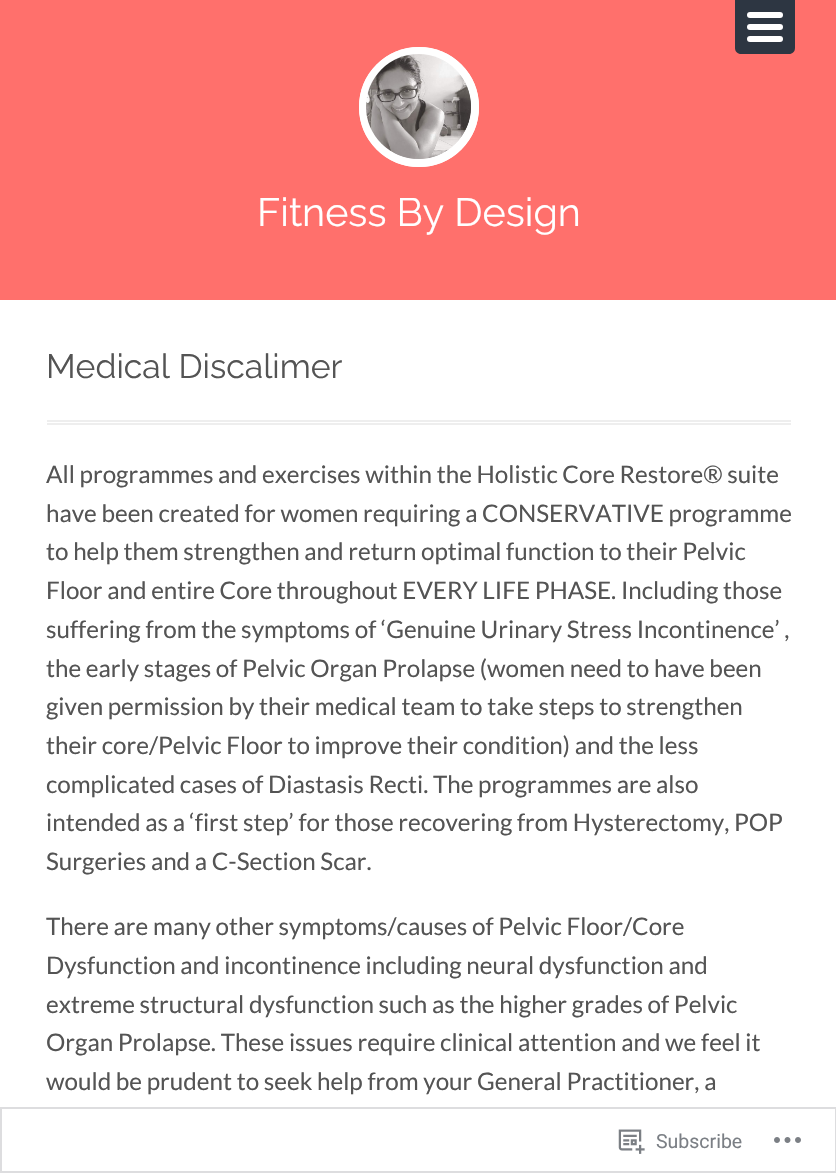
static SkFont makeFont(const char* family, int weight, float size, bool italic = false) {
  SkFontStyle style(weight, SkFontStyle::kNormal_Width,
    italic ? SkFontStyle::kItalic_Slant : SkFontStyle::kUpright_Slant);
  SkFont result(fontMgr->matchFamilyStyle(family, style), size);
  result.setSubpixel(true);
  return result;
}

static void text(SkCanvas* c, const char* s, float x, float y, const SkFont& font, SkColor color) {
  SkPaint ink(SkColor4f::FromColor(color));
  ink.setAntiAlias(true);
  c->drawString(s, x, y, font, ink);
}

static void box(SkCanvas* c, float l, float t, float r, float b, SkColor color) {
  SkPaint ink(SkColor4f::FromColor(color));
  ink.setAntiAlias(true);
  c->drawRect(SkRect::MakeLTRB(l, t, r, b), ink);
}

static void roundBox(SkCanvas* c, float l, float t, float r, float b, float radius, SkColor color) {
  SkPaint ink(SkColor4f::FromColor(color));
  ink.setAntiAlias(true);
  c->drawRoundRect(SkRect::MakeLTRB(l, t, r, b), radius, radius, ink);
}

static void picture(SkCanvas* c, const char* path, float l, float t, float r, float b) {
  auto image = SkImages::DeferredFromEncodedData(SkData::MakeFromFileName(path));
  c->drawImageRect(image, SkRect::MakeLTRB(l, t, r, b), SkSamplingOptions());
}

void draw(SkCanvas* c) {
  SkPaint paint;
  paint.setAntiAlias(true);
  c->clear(0xffff706c);
  paint.setColor(0xff2d3642);
  c->drawPath(SkPathBuilder().moveTo(735, 0).lineTo(795, 0).lineTo(795, 48).cubicTo(795, 51.5f, 792.5f, 54, 789, 54).lineTo(741, 54).cubicTo(737.5f, 54, 735, 51.5f, 735, 48).close().detach(), paint);
  roundBox(c, 747, 24, 783, 30, 3, 0xffffffff);
  roundBox(c, 747, 12, 783, 18, 3, 0xffffffff);
  roundBox(c, 747, 36, 783, 42, 3, 0xffffffff);
  paint.setColor(0xffffffff);
  c->drawCircle(419, 107, 60, paint);
  picture(c, "img_01.png", 368, 55, 471, 159);
  paint.setStyle(SkPaint::kStroke_Style);
  paint.setStrokeWidth(8);
  c->drawCircle(419, 107, 56, paint);
  picture(c, "img_02.png", 366, 54, 471, 159);
  SkFont face1 = makeFont("Raleway", 400, 39.5f);
  text(c, "Fitness By Design", 257, 226, face1, 0xffffffff);
  box(c, 0, 300, 836, 1107, 0xffffffff);
  box(c, 2, 1109, 835, 1171, 0xffffffff);
  box(c, 47, 420, 791, 422, 0xffeeeeee);
  box(c, 47, 423, 791, 425, 0xffeeeeee);
  SkFont face2 = makeFont("Raleway", 400, 33.75f);
  text(c, "Medical Discalimer", 46, 378, face2, 0xff545454);
  SkFont face3 = makeFont("Lato", 400, 24.2f);
  text(c, "All programmes and exercises within the Holistic Core Restore® suite", 46, 483, face3, 0xff545454);
  text(c, "have been created for women requiring a CONSERVATIVE programme", 46, 522, face3, 0xff545454);
  text(c, "to help them strengthen and return optimal function to their Pelvic", 46, 560, face3, 0xff545454);
  text(c, "Floor and entire Core throughout EVERY LIFE PHASE. Including those", 46, 599, face3, 0xff545454);
  text(c, "suffering from the symptoms of ‘Genuine Urinary Stress Incontinence’ ,", 46, 638, face3, 0xff545454);
  text(c, "the early stages of Pelvic Organ Prolapse (women need to have been", 46, 677, face3, 0xff545454);
  text(c, "given permission by their medical team to take steps to strengthen", 46, 715, face3, 0xff545454);
  text(c, "their core/Pelvic Floor to improve their condition) and the less", 46, 754, face3, 0xff545454);
  text(c, "complicated cases of Diastasis Recti. The programmes are also", 46, 793, face3, 0xff545454);
  text(c, "intended as a ‘first step’ for those recovering from Hysterectomy, POP", 46, 831, face3, 0xff545454);
  text(c, "Surgeries and a C-Section Scar.", 46, 870, face3, 0xff545454);
  text(c, "There are many other symptoms/causes of Pelvic Floor/Core", 46, 935, face3, 0xff545454);
  text(c, "Dysfunction and incontinence including neural dysfunction and", 46, 974, face3, 0xff545454);
  text(c, "extreme structural dysfunction such as the higher grades of Pelvic", 46, 1013, face3, 0xff545454);
  text(c, "Organ Prolapse. These issues require clinical attention and we feel it", 46, 1051, face3, 0xff545454);
  text(c, "would be prudent to seek help from your General Practitioner, a", 46, 1090, face3, 0xff545454);
  text(c, "Gynaecologist or Obstetrician as your recovery and improvement in", 46, 1167, face3, 0xffffffff);
  paint.setStrokeWidth(2);
  paint.setColor(0xffdddddf);
  c->drawRect(SkRect::MakeLTRB(1, 1108, 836, 1172), paint);
  picture(c, "img_03.png", 618, 1129, 645, 1154);
  SkFont face4 = makeFont("Roboto", 400, 19.5f);
  text(c, "Subscribe", 656, 1148, face4, 0xff7b7f85);
  picture(c, "img_04.png", 774, 1137, 801, 1143);
}
